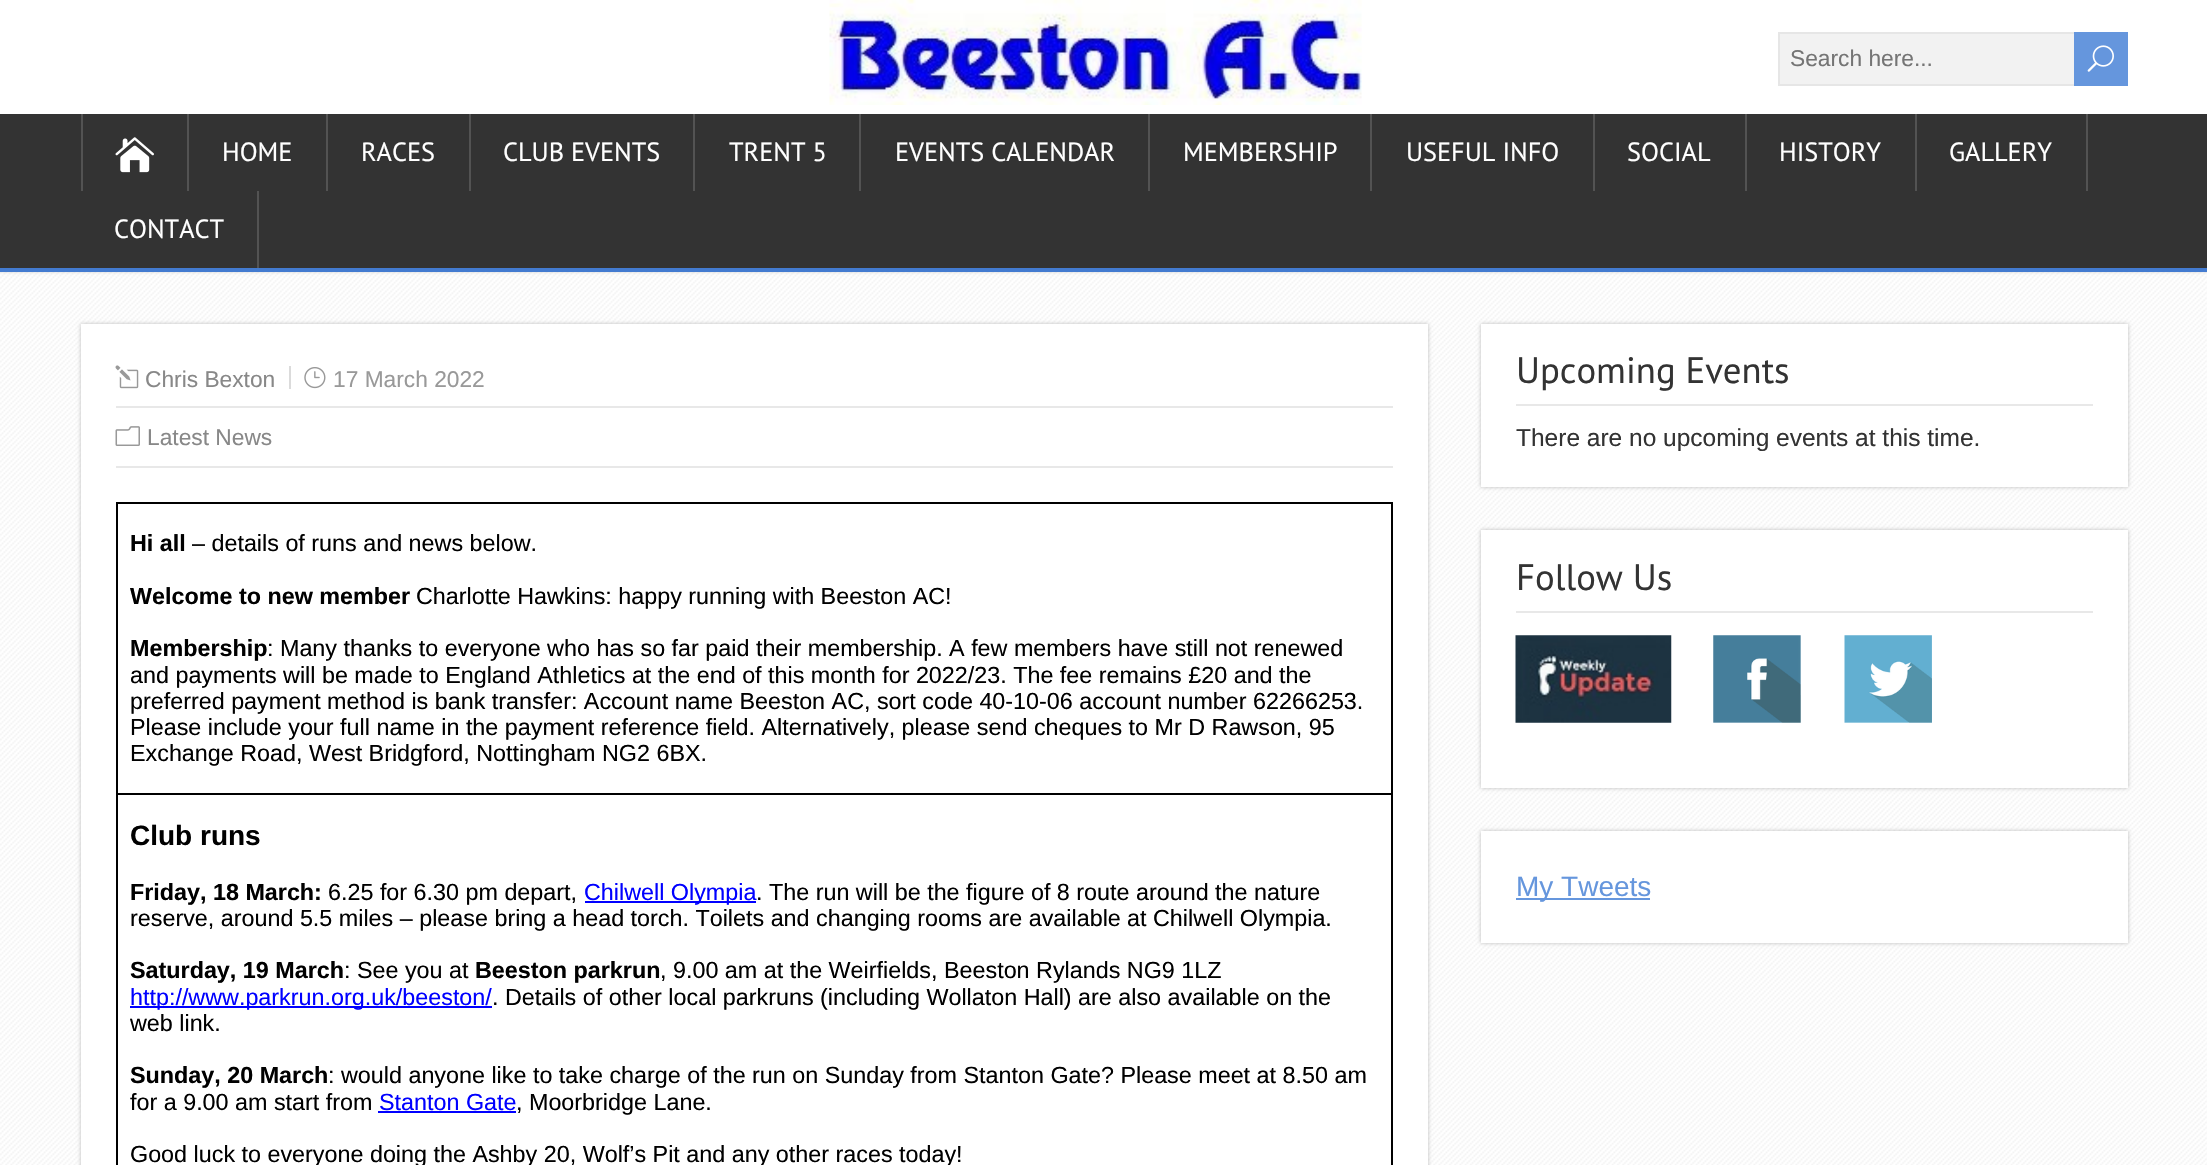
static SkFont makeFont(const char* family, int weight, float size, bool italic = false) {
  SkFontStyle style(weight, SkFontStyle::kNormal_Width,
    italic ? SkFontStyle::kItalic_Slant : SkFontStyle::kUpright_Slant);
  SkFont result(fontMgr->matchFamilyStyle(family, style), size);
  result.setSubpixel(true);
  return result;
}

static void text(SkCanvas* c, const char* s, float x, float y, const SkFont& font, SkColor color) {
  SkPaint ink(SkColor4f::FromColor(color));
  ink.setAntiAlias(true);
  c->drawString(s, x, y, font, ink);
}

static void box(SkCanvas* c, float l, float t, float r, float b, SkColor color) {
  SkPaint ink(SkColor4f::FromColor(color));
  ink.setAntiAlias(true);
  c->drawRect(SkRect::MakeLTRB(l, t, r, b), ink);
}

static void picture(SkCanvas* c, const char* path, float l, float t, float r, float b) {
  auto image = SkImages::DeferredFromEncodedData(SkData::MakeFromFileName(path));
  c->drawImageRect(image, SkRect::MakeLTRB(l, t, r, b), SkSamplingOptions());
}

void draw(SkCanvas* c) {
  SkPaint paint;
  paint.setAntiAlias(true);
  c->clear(0xffffffff);
  picture(c, "img_10.png", 0, 272, 2207, 1165);
  paint.setColor(0xffbbbbbb);
  paint.setMaskFilter(SkMaskFilter::MakeBlur(kNormal_SkBlurStyle, 2));
  c->drawRect(SkRect::MakeLTRB(0, 0, 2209, 271), paint);
  paint.setMaskFilter(nullptr);
  box(c, 0, 0, 2207, 114, 0xffffffff);
  picture(c, "img_01.png", 829, 0, 1362, 105);
  box(c, 1780, 34, 2074, 84, 0xfff2f2f2);
  paint.setStyle(SkPaint::kStroke_Style);
  paint.setStrokeWidth(2);
  paint.setColor(0xffe6e6e6);
  c->drawRect(SkRect::MakeLTRB(1779, 33, 2127, 85), paint);
  SkFont face1 = makeFont("Liberation Sans", 400, 22.75f);
  text(c, "Search here...", 1790, 66, face1, 0xff757575);
  box(c, 2074, 32, 2128, 86, 0xff6596dd);
  picture(c, "img_02.png", 2087, 45, 2114, 72);
  box(c, 0, 114, 2207, 268, 0xff333333);
  box(c, 0, 268, 2207, 272, 0xff437bd0);
  box(c, 187, 114, 189, 191, 0xff535353);
  box(c, 81, 114, 83, 191, 0xff535353);
  picture(c, "img_03.png", 115, 137, 154, 173);
  box(c, 326, 114, 328, 191, 0xff535353);
  SkFont face2 = makeFont("PT Sans", 400, 26.25f);
  text(c, "HOME", 222, 161, face2, 0xffffffff);
  box(c, 469, 114, 471, 191, 0xff535353);
  text(c, "RACES", 361, 161, face2, 0xffffffff);
  box(c, 693, 114, 695, 191, 0xff535353);
  text(c, "CLUB EVENTS", 503, 161, face2, 0xffffffff);
  box(c, 859, 114, 861, 191, 0xff535353);
  text(c, "TRENT 5", 729, 161, face2, 0xffffffff);
  box(c, 1148, 114, 1150, 191, 0xff535353);
  text(c, "EVENTS CALENDAR", 895, 161, face2, 0xffffffff);
  box(c, 1370, 114, 1372, 191, 0xff535353);
  text(c, "MEMBERSHIP", 1183, 161, face2, 0xffffffff);
  box(c, 1593, 114, 1595, 191, 0xff535353);
  text(c, "USEFUL INFO", 1406, 161, face2, 0xffffffff);
  box(c, 1745, 114, 1747, 191, 0xff535353);
  text(c, "SOCIAL", 1627, 161, face2, 0xffffffff);
  box(c, 1915, 114, 1917, 191, 0xff535353);
  text(c, "HISTORY", 1779, 161, face2, 0xffffffff);
  box(c, 2086, 114, 2088, 191, 0xff535353);
  text(c, "GALLERY", 1949, 161, face2, 0xffffffff);
  box(c, 257, 191, 259, 268, 0xff535353);
  text(c, "CONTACT", 114, 238, face2, 0xffffffff);
  paint.setStyle(SkPaint::kFill_Style);
  paint.setColor(0xffbbbbbb);
  paint.setMaskFilter(SkMaskFilter::MakeBlur(kNormal_SkBlurStyle, 2));
  c->drawRect(SkRect::MakeLTRB(81, 324, 1428, 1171), paint);
  paint.setMaskFilter(nullptr);
  box(c, 81, 324, 1428, 1165, 0xffffffff);
  picture(c, "img_04.png", 115, 365, 139, 389);
  text(c, "Chris Bexton", 145, 387, face1, 0xff888888);
  picture(c, "img_05.png", 304, 367, 326, 389);
  text(c, "17 March 2022", 333, 387, face1, 0xff999999);
  box(c, 289, 366, 291, 389, 0xffdbdbdb);
  box(c, 116, 406, 1393, 408, 0xffe8e8e8);
  box(c, 116, 466, 1393, 468, 0xffe8e8e8);
  picture(c, "img_06.png", 115, 426, 140, 446);
  text(c, "Latest News", 147, 445, face1, 0xff888888);
  box(c, 116, 502, 1393, 504, 0xff000000);
  box(c, 1391, 793, 1393, 1165, 0xff000000);
  box(c, 1391, 502, 1393, 795, 0xff000000);
  box(c, 116, 793, 118, 1165, 0xff000000);
  box(c, 116, 793, 1393, 795, 0xff000000);
  box(c, 116, 502, 118, 795, 0xff000000);
  SkFont face3 = makeFont("Liberation Sans", 700, 23.33f);
  text(c, "Hi all", 130, 551, face3, 0xff000000);
  SkFont face4 = makeFont("Liberation Sans", 400, 23.33f);
  text(c, "– details of runs and news below.", 192, 551, face4, 0xff000000);
  text(c, "Welcome to new member", 130, 604, face3, 0xff000000);
  text(c, "Charlotte Hawkins: happy running with Beeston AC!", 416, 604, face4, 0xff000000);
  text(c, "Membership", 130, 656, face3, 0xff000000);
  text(c, ": Many thanks to everyone who has so far paid their membership. A few members have still not renewed", 267, 656, face4, 0xff000000);
  text(c, "and payments will be made to England Athletics at the end of this month for 2022/23. The fee remains £20 and the", 130, 683, face4, 0xff000000);
  text(c, "preferred payment method is bank transfer: Account name Beeston AC, sort code 40-10-06 account number 62266253.", 130, 709, face4, 0xff000000);
  text(c, "Please include your full name in the payment reference field. Alternatively, please send cheques to Mr D Rawson, 95", 130, 735, face4, 0xff000000);
  text(c, "Exchange Road, West Bridgford, Nottingham NG2 6BX.", 130, 761, face4, 0xff000000);
  SkFont face5 = makeFont("Liberation Sans", 700, 28);
  text(c, "Club runs", 130, 845, face5, 0xff000000);
  text(c, "Friday, 18 March:", 130, 900, face3, 0xff000000);
  text(c, "6.25 for 6.30 pm depart,", 328, 900, face4, 0xff000000);
  box(c, 585, 901, 756, 903, 0xff0000ff);
  text(c, "Chilwell Olympia", 584, 900, face4, 0xff0000ff);
  text(c, ". The run will be the figure of 8 route around the nature", 756, 900, face4, 0xff000000);
  text(c, "reserve, around 5.5 miles – please bring a head torch. Toilets and changing rooms are available", 130, 926, face4, 0xff000000);
  text(c, "at Chilwell Olympia.", 1127, 926, face4, 0xff000000);
  text(c, "Saturday, 19 March", 130, 978, face3, 0xff000000);
  text(c, ": See you at", 344, 978, face4, 0xff000000);
  text(c, "Beeston parkrun", 475, 978, face3, 0xff000000);
  text(c, ", 9.00 am at the Weirfields, Beeston Rylands NG9 1LZ", 660, 978, face4, 0xff000000);
  box(c, 130, 1006, 492, 1008, 0xff0000ff);
  text(c, "http://www.parkrun.org.uk/beeston/", 130, 1005, face4, 0xff0000ff);
  text(c, ". Details of other local parkruns (including Wollaton Hall) are also available on the", 492, 1005, face4, 0xff000000);
  text(c, "web link.", 130, 1031, face4, 0xff000000);
  text(c, "Sunday, 20 March", 130, 1083, face3, 0xff000000);
  text(c, ": would anyone like to take charge of the run on Sunday from Stanton Gate? Please meet at 8.50 am", 328, 1083, face4, 0xff000000);
  text(c, "for a 9.00 am start from", 130, 1110, face4, 0xff000000);
  text(c, "Stanton Gate", 379, 1110, face4, 0xff0000ff);
  box(c, 378, 1111, 516, 1113, 0xff0000ff);
  text(c, ", Moorbridge Lane.", 516, 1110, face4, 0xff000000);
  text(c, "Good luck to everyone doing the Ashby 20, Wolf’s Pit and any other races today!", 130, 1162, face4, 0xff000000);
  paint.setMaskFilter(SkMaskFilter::MakeBlur(kNormal_SkBlurStyle, 2));
  c->drawRect(SkRect::MakeLTRB(1481, 324, 2128, 487), paint);
  paint.setMaskFilter(nullptr);
  box(c, 1481, 324, 2128, 487, 0xffffffff);
  box(c, 1516, 404, 2093, 406, 0xffe8e8e8);
  SkFont face6 = makeFont("PT Sans", 400, 36.75f);
  text(c, "Upcoming Events", 1516, 383, face6, 0xff333333);
  SkFont face7 = makeFont("Liberation Sans", 400, 24.5f);
  text(c, "There are no upcoming events at this time.", 1516, 446, face7, 0xff333333);
  paint.setMaskFilter(SkMaskFilter::MakeBlur(kNormal_SkBlurStyle, 2));
  c->drawRect(SkRect::MakeLTRB(1481, 530, 2128, 788), paint);
  paint.setMaskFilter(nullptr);
  box(c, 1481, 530, 2128, 788, 0xffffffff);
  box(c, 1516, 611, 2093, 613, 0xffe8e8e8);
  text(c, "Follow Us", 1516, 590, face6, 0xff333333);
  picture(c, "img_07.png", 1515, 635, 1672, 723);
  picture(c, "img_08.png", 1713, 635, 1801, 723);
  picture(c, "img_09.png", 1844, 635, 1932, 723);
  paint.setMaskFilter(SkMaskFilter::MakeBlur(kNormal_SkBlurStyle, 2));
  c->drawRect(SkRect::MakeLTRB(1481, 831, 2128, 943), paint);
  paint.setMaskFilter(nullptr);
  box(c, 1481, 831, 2128, 943, 0xffffffff);
  box(c, 1516, 898, 1650, 900, 0xff6596dd);
  SkFont face8 = makeFont("Liberation Sans", 400, 28);
  text(c, "My Tweets", 1516, 896, face8, 0xff6596dd);
}
